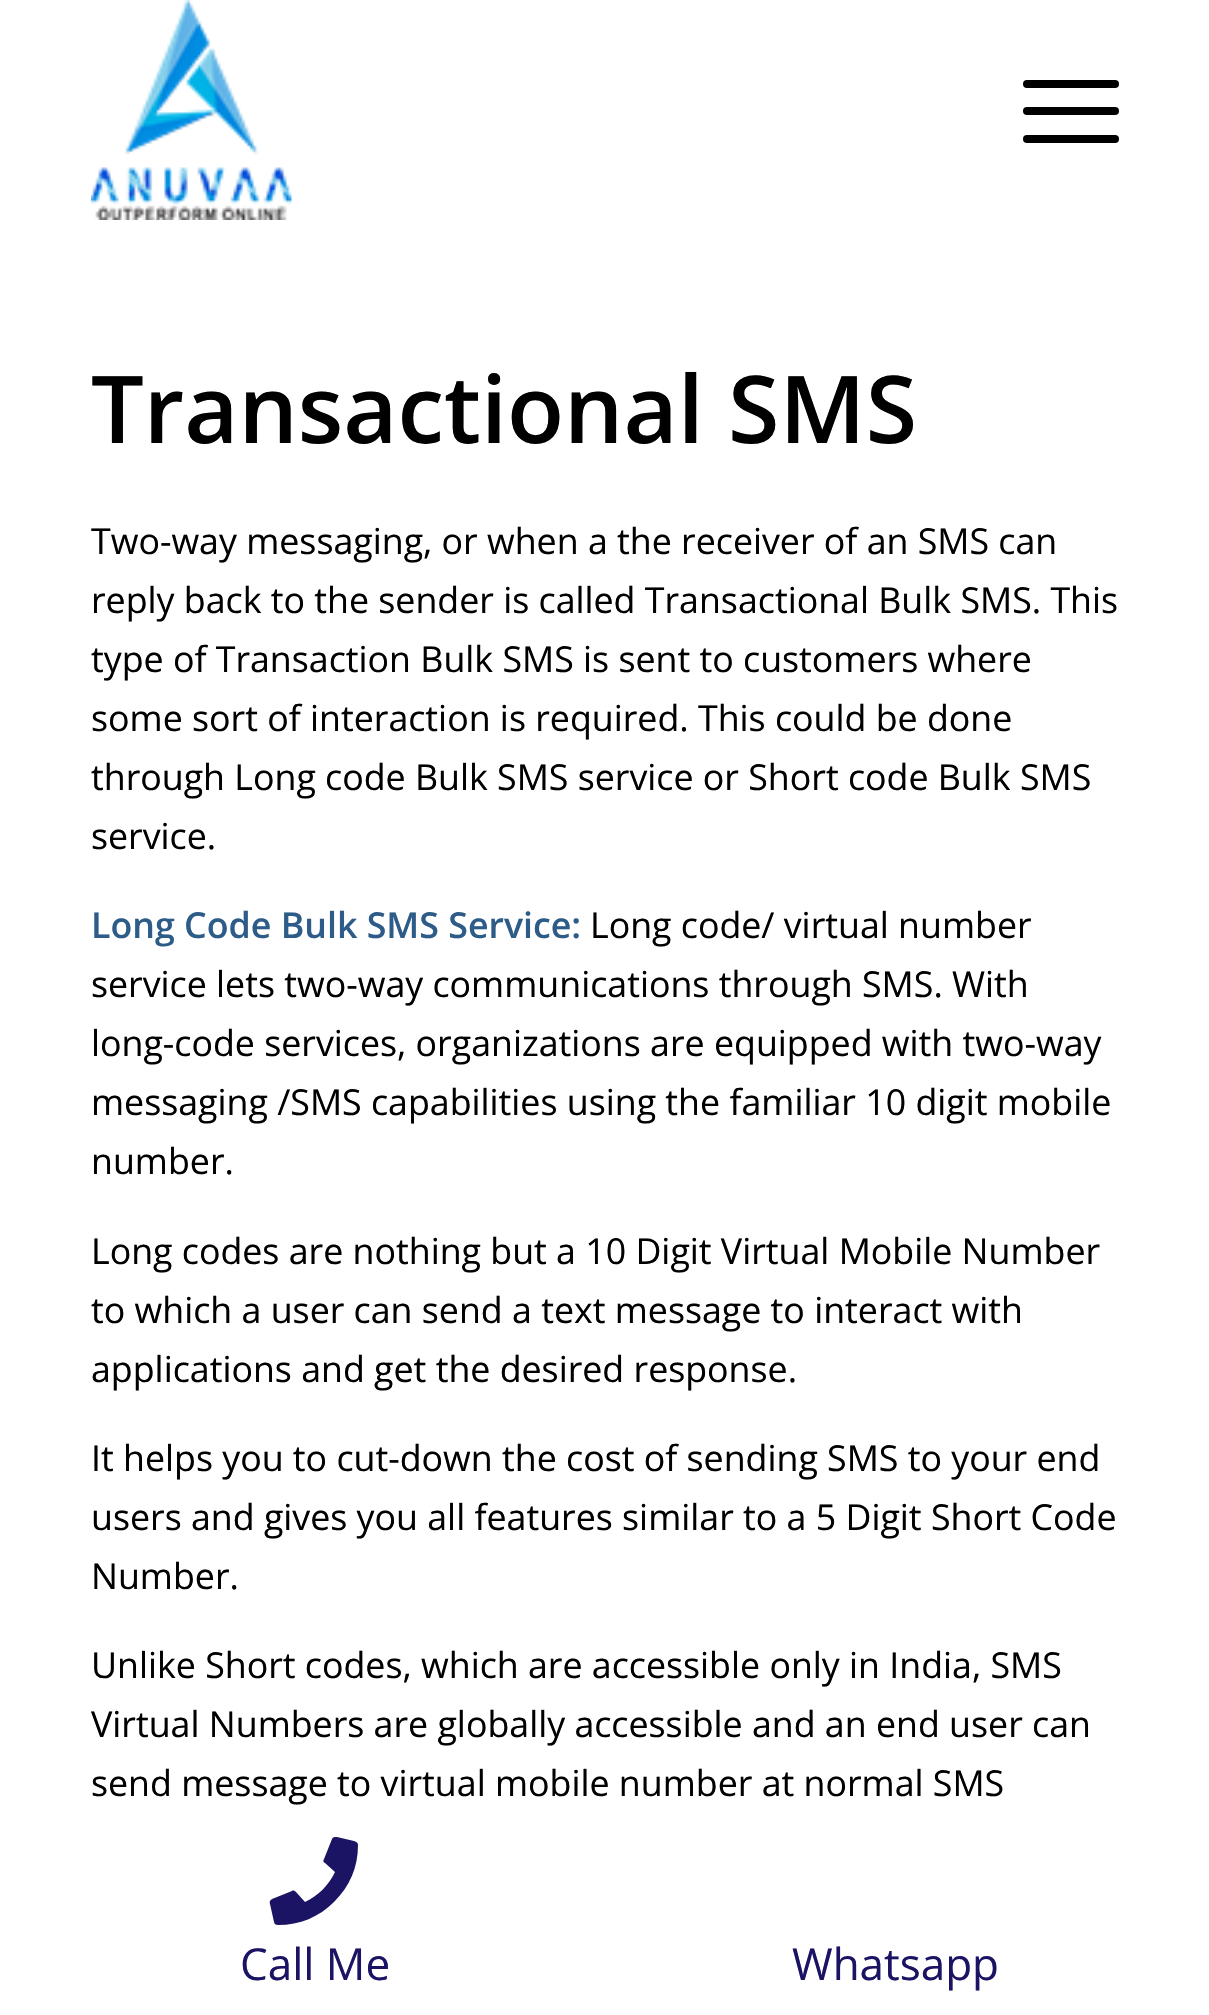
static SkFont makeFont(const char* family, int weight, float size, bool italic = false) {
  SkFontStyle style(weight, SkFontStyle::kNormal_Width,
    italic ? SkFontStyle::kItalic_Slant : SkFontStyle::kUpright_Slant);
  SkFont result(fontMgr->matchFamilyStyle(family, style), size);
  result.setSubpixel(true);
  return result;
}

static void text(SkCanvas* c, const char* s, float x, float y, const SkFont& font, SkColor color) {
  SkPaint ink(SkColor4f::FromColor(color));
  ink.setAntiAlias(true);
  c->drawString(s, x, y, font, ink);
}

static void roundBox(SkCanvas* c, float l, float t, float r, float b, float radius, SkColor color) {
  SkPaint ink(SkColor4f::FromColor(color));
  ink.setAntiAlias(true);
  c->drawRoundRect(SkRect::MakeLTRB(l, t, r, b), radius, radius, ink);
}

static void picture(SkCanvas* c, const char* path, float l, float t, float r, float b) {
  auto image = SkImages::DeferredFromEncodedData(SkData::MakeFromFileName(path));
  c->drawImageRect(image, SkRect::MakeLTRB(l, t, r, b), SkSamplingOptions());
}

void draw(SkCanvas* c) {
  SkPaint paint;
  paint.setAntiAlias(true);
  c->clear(0xffffffff);
  picture(c, "img_01.png", 90, 0, 292, 220);
  roundBox(c, 1023, 107, 1119, 115, 4, 0xff000000);
  roundBox(c, 1023, 80, 1119, 88, 4, 0xff000000);
  roundBox(c, 1023, 135, 1119, 143, 4, 0xff000000);
  SkFont face1 = makeFont("Open Sans", 600, 93.5f);
  text(c, "Transactional SMS", 91, 443, face1, 0xff000000);
  SkFont face2 = makeFont("Open Sans", 400, 35.75f);
  text(c, "Two-way messaging, or when a the receiver of an SMS can", 91, 554, face2, 0xff000000);
  text(c, "reply back to the sender is called Transactional Bulk SMS. This", 91, 613, face2, 0xff000000);
  text(c, "type of Transaction Bulk SMS is sent to customers where", 91, 672, face2, 0xff000000);
  text(c, "some sort of interaction is required. This could be done", 91, 731, face2, 0xff000000);
  text(c, "through Long code Bulk SMS service or Short code Bulk SMS", 91, 790, face2, 0xff000000);
  text(c, "service.", 91, 849, face2, 0xff000000);
  SkFont face3 = makeFont("Open Sans", 600, 35.75f);
  text(c, "Long Code Bulk SMS Service:", 91, 938, face3, 0xff2d5c88);
  text(c, "Long code/ virtual number", 590, 938, face2, 0xff000000);
  text(c, "service lets two-way communications through SMS. With", 91, 997, face2, 0xff000000);
  text(c, "long-code services, organizations are equipped with two-way", 91, 1056, face2, 0xff000000);
  text(c, "messaging /SMS capabilities using the familiar 10 digit mobile", 91, 1115, face2, 0xff000000);
  text(c, "number.", 91, 1174, face2, 0xff000000);
  text(c, "Long codes are nothing but a 10 Digit Virtual Mobile Number", 91, 1264, face2, 0xff000000);
  text(c, "to which a user can send a text message to interact with", 91, 1323, face2, 0xff000000);
  text(c, "applications and get the desired response.", 91, 1382, face2, 0xff000000);
  text(c, "It helps you to cut-down the cost of sending SMS to your end", 91, 1471, face2, 0xff000000);
  text(c, "users and gives you all features similar to a 5 Digit Short Code", 91, 1530, face2, 0xff000000);
  text(c, "Number.", 91, 1589, face2, 0xff000000);
  text(c, "Unlike Short codes, which are accessible only in India, SMS", 91, 1678, face2, 0xff000000);
  text(c, "Virtual Numbers are globally accessible and an end user can", 91, 1737, face2, 0xff000000);
  text(c, "send message to virtual mobile number at normal SMS", 91, 1796, face2, 0xff000000);
  paint.setColor(0xff1b1464);
  c->drawPath(SkPathBuilder().moveTo(354, 1841).cubicTo(357, 1842, 358, 1843, 358, 1845).cubicTo(358, 1867, 350, 1886, 334, 1902).cubicTo(319, 1917, 300, 1925, 278, 1925).cubicTo(276, 1925, 274, 1924, 274, 1922).lineTo(270, 1904).cubicTo(269, 1902, 270, 1900, 272, 1899).lineTo(292, 1891).cubicTo(293, 1890, 295, 1891, 296, 1892).lineTo(305, 1902).cubicTo(318, 1896, 329, 1885, 335, 1872).lineTo(325, 1863).cubicTo(323, 1862, 323, 1861, 324, 1859).lineTo(332, 1839).cubicTo(333, 1837, 334, 1837, 337, 1837).close().detach(), paint);
  SkFont face4 = makeFont("Open Sans", 400, 44);
  text(c, "Call Me", 240, 1980, face4, 0xff1b1464);
  text(c, "Whatsapp", 792, 1980, face4, 0xff1b1464);
}
